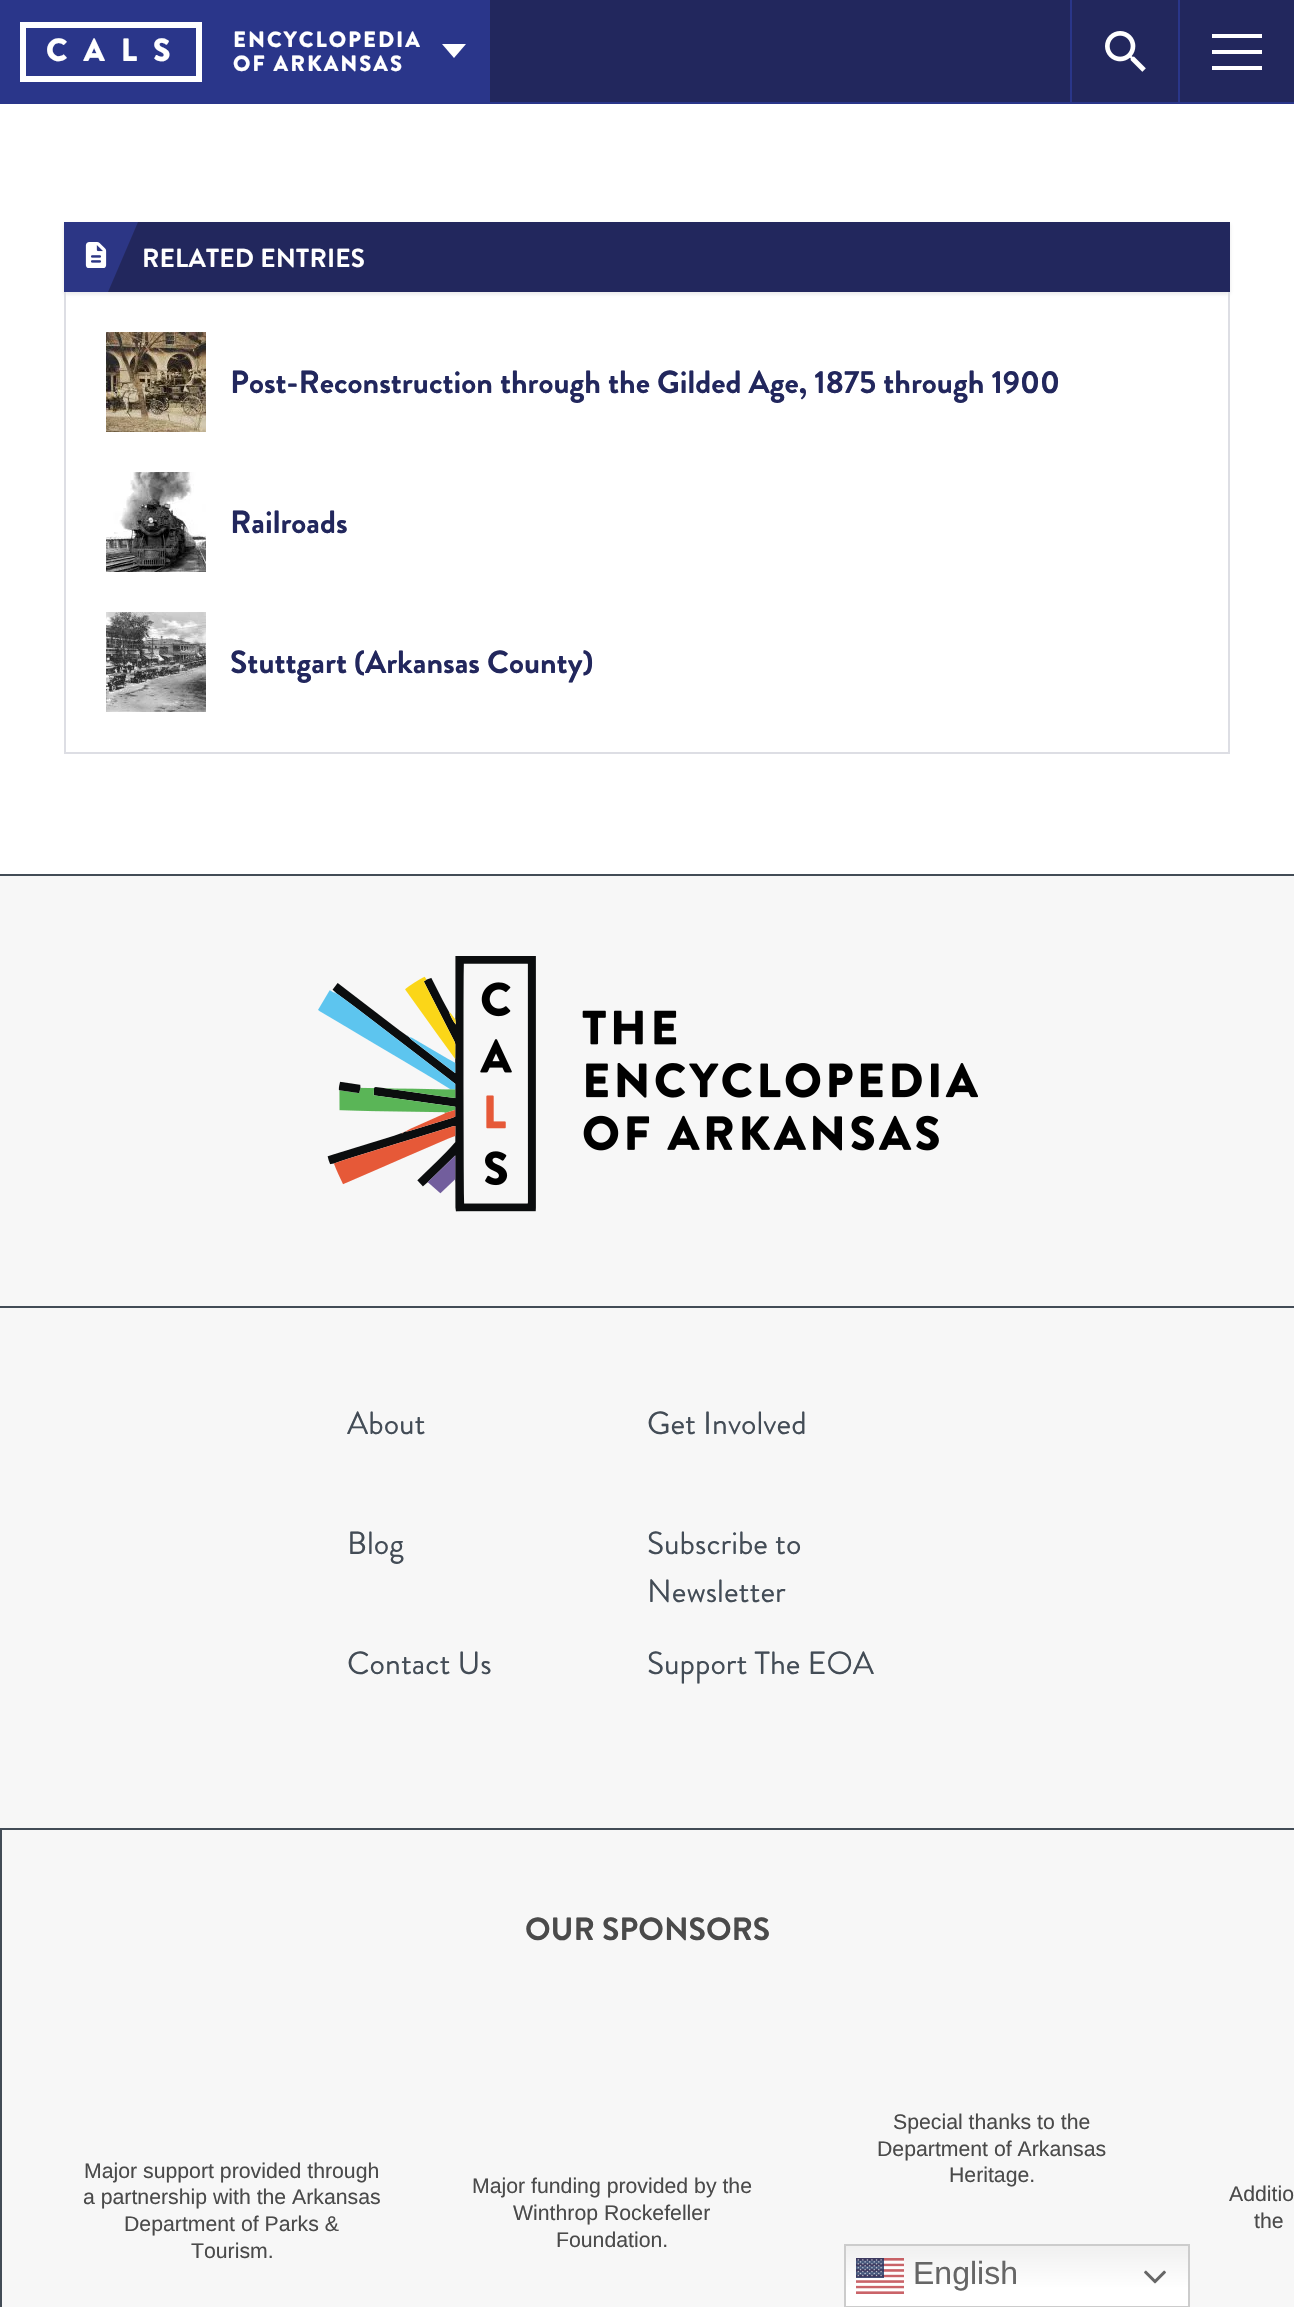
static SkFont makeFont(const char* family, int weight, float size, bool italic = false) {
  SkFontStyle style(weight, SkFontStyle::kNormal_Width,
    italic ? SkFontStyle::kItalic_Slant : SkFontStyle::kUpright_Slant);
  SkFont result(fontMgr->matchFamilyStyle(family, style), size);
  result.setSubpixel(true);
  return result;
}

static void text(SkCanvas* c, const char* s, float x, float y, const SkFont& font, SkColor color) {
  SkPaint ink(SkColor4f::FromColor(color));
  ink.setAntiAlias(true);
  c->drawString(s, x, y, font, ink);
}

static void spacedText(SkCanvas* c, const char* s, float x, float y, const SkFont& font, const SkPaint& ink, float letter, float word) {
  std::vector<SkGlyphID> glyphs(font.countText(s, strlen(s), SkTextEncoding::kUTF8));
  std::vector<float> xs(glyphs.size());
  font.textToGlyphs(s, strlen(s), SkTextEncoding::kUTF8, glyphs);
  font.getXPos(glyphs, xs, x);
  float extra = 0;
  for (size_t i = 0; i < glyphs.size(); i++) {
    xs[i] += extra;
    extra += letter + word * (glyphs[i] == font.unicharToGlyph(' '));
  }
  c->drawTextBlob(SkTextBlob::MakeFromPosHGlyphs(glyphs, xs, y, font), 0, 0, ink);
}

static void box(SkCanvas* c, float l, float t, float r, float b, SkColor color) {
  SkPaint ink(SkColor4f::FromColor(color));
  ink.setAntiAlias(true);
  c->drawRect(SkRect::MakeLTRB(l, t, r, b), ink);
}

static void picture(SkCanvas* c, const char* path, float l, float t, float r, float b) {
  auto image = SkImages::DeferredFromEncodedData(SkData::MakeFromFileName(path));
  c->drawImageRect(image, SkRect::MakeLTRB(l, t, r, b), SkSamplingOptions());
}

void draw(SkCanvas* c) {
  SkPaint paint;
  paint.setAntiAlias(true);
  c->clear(0xffffffff);
  box(c, 490, 0, 1294, 102, 0xff22275d);
  box(c, 0, 0, 490, 104, 0xff2a368a);
  paint.setStyle(SkPaint::kStroke_Style);
  paint.setStrokeWidth(6);
  paint.setColor(0xffffffff);
  c->drawRect(SkRect::MakeLTRB(23, 25, 199, 79), paint);
  SkFont face1 = makeFont("Brandon Grotesque", 900, 32);
  paint.setStyle(SkPaint::kFill_Style);
  spacedText(c, "CALS", 46, 61, face1, paint, 16, 0);
  SkFont face2 = makeFont("Brandon Grotesque", 900, 22);
  spacedText(c, "ENCYCLOPEDIA", 233, 47, face2, paint, 2, 0);
  spacedText(c, "OF ARKANSAS", 233, 71, face2, paint, 2, 0);
  c->drawPath(SkPathBuilder().moveTo(442, 44).lineTo(466, 44).lineTo(454, 58).close().detach(), paint);
  box(c, 490, 102, 1294, 104, 0xff2a368a);
  box(c, 1178, 0, 1180, 102, 0xff2a368a);
  box(c, 1070, 0, 1072, 102, 0xff2a368a);
  picture(c, "img_01.png", 1105, 31, 1146, 72);
  box(c, 1212, 34, 1262, 38, 0xffffffff);
  box(c, 1212, 50, 1262, 54, 0xffffffff);
  box(c, 1212, 66, 1262, 70, 0xffffffff);
  paint.setColor(0x1a121519);
  paint.setMaskFilter(SkMaskFilter::MakeBlur(kNormal_SkBlurStyle, 2));
  c->drawRect(SkRect::MakeLTRB(64, 224, 1230, 294), paint);
  paint.setMaskFilter(nullptr);
  box(c, 108, 222, 1230, 292, 0xff22275d);
  box(c, 64, 222, 108, 292, 0xff2c3685);
  picture(c, "img_02.png", 85, 242, 107, 268);
  paint.setColor(0xff2c3685);
  c->drawPath(SkPathBuilder().moveTo(108, 292).lineTo(108, 222).lineTo(138, 222).close().detach(), paint);
  SkFont face3 = makeFont("Brandon Grotesque", 700, 26);
  paint.setColor(0xffffffff);
  spacedText(c, "RELATED ENTRIES", 142, 267, face3, paint, 0.25f, 0);
  box(c, 1228, 292, 1230, 754, 0xffdddee4);
  box(c, 64, 752, 1230, 754, 0xffdddee4);
  box(c, 64, 292, 66, 754, 0xffdddee4);
  picture(c, "img_03.png", 106, 332, 206, 432);
  SkFont face4 = makeFont("Brandon Grotesque", 700, 32);
  text(c, "Post-Reconstruction through the Gilded Age, 1875 through 1900", 230, 393, face4, 0xff22275d);
  picture(c, "img_04.png", 106, 472, 206, 572);
  text(c, "Railroads", 230, 533, face4, 0xff22275d);
  picture(c, "img_05.png", 106, 612, 206, 712);
  text(c, "Stuttgart (Arkansas County)", 230, 673, face4, 0xff22275d);
  box(c, 0, 876, 1294, 2307, 0xfff7f7f7);
  box(c, 0, 874, 1294, 876, 0xff434c56);
  box(c, 0, 1828, 1294, 1830, 0xff434c56);
  picture(c, "img_06.png", 318, 956, 978, 1212);
  box(c, 0, 1306, 1294, 1308, 0xff434c56);
  SkFont face5 = makeFont("Brandon Grotesque", 400, 32);
  text(c, "About", 347, 1434, face5, 0xff434c56);
  text(c, "Get Involved", 647, 1434, face5, 0xff434c56);
  text(c, "Blog", 347, 1554, face5, 0xff434c56);
  text(c, "Subscribe to", 647, 1554, face5, 0xff434c56);
  text(c, "Newsletter", 647, 1602, face5, 0xff434c56);
  text(c, "Contact Us", 347, 1674, face5, 0xff434c56);
  text(c, "Support The EOA", 647, 1674, face5, 0xff434c56);
  box(c, 0, 1830, 2, 2307, 0xff434c56);
  text(c, "OUR SPONSORS", 525, 1940, face4, 0xff4a4a4a);
  SkFont face6 = makeFont("Liberation Sans", 400, 21.25f);
  text(c, "Special thanks to the", 893, 2129, face6, 0xff4a4a4a);
  text(c, "Department of Arkansas", 877, 2156, face6, 0xff4a4a4a);
  text(c, "Heritage.", 949, 2182, face6, 0xff4a4a4a);
  text(c, "Major support provided through", 84, 2178, face6, 0xff4a4a4a);
  text(c, "a partnership with the Arkansas", 83, 2204, face6, 0xff4a4a4a);
  text(c, "Department of Parks &", 124, 2231, face6, 0xff4a4a4a);
  text(c, "Tourism.", 191, 2258, face6, 0xff4a4a4a);
  text(c, "Major funding provided by the", 472, 2193, face6, 0xff4a4a4a);
  text(c, "Winthrop Rockefeller", 513, 2220, face6, 0xff4a4a4a);
  text(c, "Foundation.", 556, 2247, face6, 0xff4a4a4a);
  text(c, "Additio", 1229, 2201, face6, 0xff4a4a4a);
  text(c, "the", 1254, 2228, face6, 0xff4a4a4a);
  {
    const SkColor colors[] = {0xffefefef, 0xffffffff};
    const float stops[] = {0, 0.7f};
    const SkPoint ends[] = {{1017, 2244}, {1017, 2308}};
    paint.setShader(SkGradientShader::MakeLinear(ends, colors, stops, 2, SkTileMode::kClamp));
    paint.setAlpha(255);
  }
  c->drawRect(SkRect::MakeLTRB(846, 2246, 1188, 2306), paint);
  paint.setStyle(SkPaint::kStroke_Style);
  paint.setStrokeWidth(2);
  paint.setShader(nullptr);
  paint.setColor(0xffcccccc);
  c->drawRect(SkRect::MakeLTRB(845, 2245, 1189, 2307), paint);
  picture(c, "img_07.png", 856, 2258, 904, 2294);
  SkFont face7 = makeFont("Liberation Sans", 400, 32);
  text(c, "English", 913, 2284, face7, 0xff666666);
  picture(c, "img_08.png", 1144, 2270, 1166, 2284);
}
